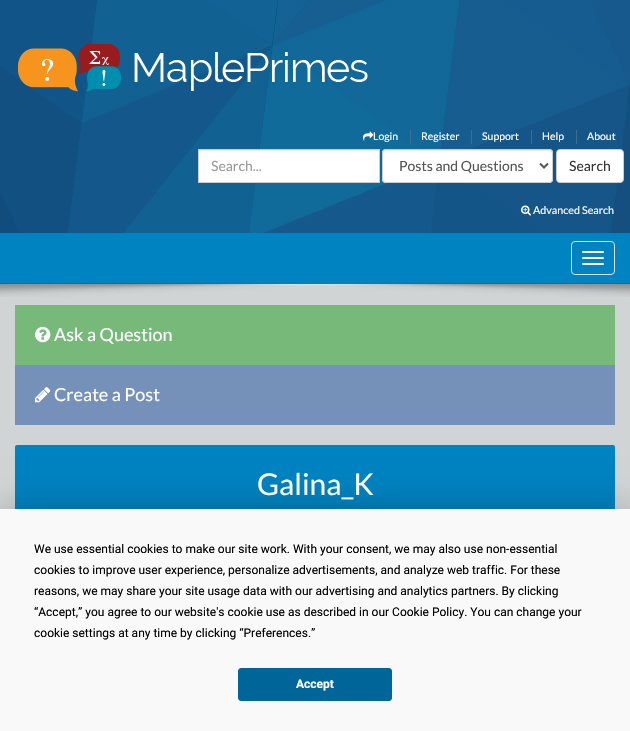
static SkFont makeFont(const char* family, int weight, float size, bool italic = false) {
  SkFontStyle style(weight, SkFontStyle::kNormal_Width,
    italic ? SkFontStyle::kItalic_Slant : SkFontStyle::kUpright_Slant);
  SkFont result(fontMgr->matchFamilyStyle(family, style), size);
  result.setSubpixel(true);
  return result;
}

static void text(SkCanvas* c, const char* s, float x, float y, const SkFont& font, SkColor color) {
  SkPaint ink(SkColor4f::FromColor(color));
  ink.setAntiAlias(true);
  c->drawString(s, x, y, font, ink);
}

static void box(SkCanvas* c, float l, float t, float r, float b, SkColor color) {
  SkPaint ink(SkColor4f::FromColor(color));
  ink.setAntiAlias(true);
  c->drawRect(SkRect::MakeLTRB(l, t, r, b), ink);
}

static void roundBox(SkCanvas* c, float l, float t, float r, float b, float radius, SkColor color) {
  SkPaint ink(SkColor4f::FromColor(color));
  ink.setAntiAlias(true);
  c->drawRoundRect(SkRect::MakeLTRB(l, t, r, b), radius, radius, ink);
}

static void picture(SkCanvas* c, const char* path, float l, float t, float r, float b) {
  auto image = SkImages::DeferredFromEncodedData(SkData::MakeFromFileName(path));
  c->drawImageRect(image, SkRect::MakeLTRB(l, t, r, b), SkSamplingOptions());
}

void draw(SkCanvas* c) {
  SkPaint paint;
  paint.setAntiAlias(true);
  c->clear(0xffffffff);
  picture(c, "img_01.png", 0, 0, 630, 233);
  picture(c, "img_02.png", 18, 44, 368, 92);
  box(c, 410, 130, 411, 144, 0xff39708c);
  picture(c, "img_03.png", 363, 131, 374, 141);
  SkFont face1 = makeFont("Lato", 400, 10.5f);
  text(c, "Login", 373, 140, face1, 0xffffffff);
  box(c, 471, 130, 472, 144, 0xff39708c);
  text(c, "Register", 421, 140, face1, 0xffffffff);
  box(c, 531, 130, 532, 144, 0xff39708c);
  text(c, "Support", 482, 140, face1, 0xffffffff);
  box(c, 576, 130, 577, 144, 0xff39708c);
  text(c, "Help", 542, 140, face1, 0xffffffff);
  text(c, "About", 587, 140, face1, 0xffffffff);
  box(c, 199, 151, 379, 182, 0xffffffff);
  box(c, 199, 150, 379, 151, 0xffececec);
  paint.setStyle(SkPaint::kStroke_Style);
  paint.setStrokeWidth(1);
  paint.setColor(0xffcccccc);
  c->drawRect(SkRect::MakeLTRB(198.5f, 149.5f, 379.5f, 182.5f), paint);
  SkFont face2 = makeFont("Lato", 400, 14);
  text(c, "Search...", 211, 171, face2, 0xff999999);
  roundBox(c, 382, 149, 553, 183, 4, 0xffffffff);
  paint.setStyle(SkPaint::kFill_Style);
  paint.setColor(0xffececec);
  c->drawPath(SkPathBuilder().moveTo(386, 151).lineTo(549, 151).cubicTo(551, 151, 552, 152, 552, 154).lineTo(552, 153).cubicTo(552, 151, 551, 150, 549, 150).lineTo(386, 150).cubicTo(384, 150, 383, 151, 383, 153).lineTo(383, 154).cubicTo(383, 152, 384, 151, 386, 151).close().detach(), paint);
  paint.setStyle(SkPaint::kStroke_Style);
  paint.setColor(0xffcccccc);
  c->drawRoundRect(SkRect::MakeLTRB(382.5f, 149.5f, 552.5f, 182.5f), 3.5f, 3.5f, paint);
  paint.setStrokeWidth(2);
  paint.setColor(0xff555555);
  c->drawPath(SkPathBuilder().moveTo(540, 163.5f).lineTo(544, 167.5f).lineTo(548, 163.5f).detach(), paint);
  text(c, "Posts and Questions", 399, 171, face2, 0xff555555);
  paint.setStyle(SkPaint::kFill_Style);
  paint.setColor(0xffffffff);
  c->drawRoundRect(SkRect::MakeLTRB(556.5f, 149.5f, 623.5f, 182.5f), 3.5f, 3.5f, paint);
  paint.setStyle(SkPaint::kStroke_Style);
  paint.setStrokeWidth(1);
  paint.setColor(0xffcccccc);
  c->drawRoundRect(SkRect::MakeLTRB(556.5f, 149.5f, 623.5f, 182.5f), 3.5f, 3.5f, paint);
  text(c, "Search", 569, 171, face2, 0xff333333);
  picture(c, "img_04.png", 521, 205, 531, 216);
  SkFont face3 = makeFont("Lato", 400, 10.75f);
  text(c, "Advanced Search", 533, 214, face3, 0xffffffff);
  box(c, 0, 233, 630, 284, 0xff0083c1);
  paint.setColor(0xffdddddd);
  c->drawRoundRect(SkRect::MakeLTRB(571.5f, 241.5f, 614.5f, 274.5f), 3.5f, 3.5f, paint);
  roundBox(c, 582, 251, 604, 253, 1, 0xffffffff);
  roundBox(c, 582, 257, 604, 259, 1, 0xffffffff);
  roundBox(c, 582, 263, 604, 265, 1, 0xffffffff);
  box(c, 0, 285, 630, 509, 0xffd1d4d5);
  box(c, 0, 284, 630, 285, 0xffe0e4e5);
  picture(c, "img_05.png", 0, 283, 630, 297);
  box(c, 15, 305, 615, 365, 0xff76b979);
  picture(c, "img_06.png", 35, 326, 51, 343);
  SkFont face4 = makeFont("Lato", 400, 18);
  text(c, "Ask a Question", 54, 341, face4, 0xffffffff);
  box(c, 15, 365, 615, 425, 0xff7691b9);
  picture(c, "img_07.png", 35, 387, 51, 403);
  text(c, "Create a Post", 54, 401, face4, 0xffffffff);
  paint.setStyle(SkPaint::kFill_Style);
  paint.setColor(0xffc9cccd);
  paint.setMaskFilter(SkMaskFilter::MakeBlur(kNormal_SkBlurStyle, 1));
  c->drawRoundRect(SkRect::MakeLTRB(15, 446, 615, 513), 2, 2, paint);
  paint.setMaskFilter(nullptr);
  roundBox(c, 15, 445, 615, 512, 2, 0xff0083c1);
  SkFont face5 = makeFont("Lato", 400, 30);
  text(c, "Galina_K", 257, 495, face5, 0xffffffff);
  paint.setColor(0x40000000);
  paint.setMaskFilter(SkMaskFilter::MakeBlur(kNormal_SkBlurStyle, 17.5f));
  c->drawRect(SkRect::MakeLTRB(0, 509, 630, 731), paint);
  paint.setMaskFilter(nullptr);
  box(c, 0, 509, 630, 731, 0xfff9f9f9);
  SkFont face6 = makeFont("Roboto", 400, 12);
  text(c, "We use essential cookies to make our site work. With your consent, we may also use non-essential", 34, 553, face6, 0xff000000);
  text(c, "cookies to improve user experience, personalize advertisements, and analyze web traffic. For these", 34, 574, face6, 0xff000000);
  text(c, "reasons, we may share your site usage data with our advertising and analytics partners. By clicking", 34, 595, face6, 0xff000000);
  text(c, "“Accept,” you agree to our website's cookie use as described in our Cookie Policy. You can change your", 34, 616, face6, 0xff000000);
  text(c, "cookie settings at any time by clicking “Preferences.”", 34, 637, face6, 0xff000000);
  paint.setColor(0xff006699);
  c->drawRoundRect(SkRect::MakeLTRB(238.5f, 668.5f, 391.5f, 700.5f), 2.5f, 2.5f, paint);
  paint.setStyle(SkPaint::kStroke_Style);
  c->drawRoundRect(SkRect::MakeLTRB(238.5f, 668.5f, 391.5f, 700.5f), 2.5f, 2.5f, paint);
  SkFont face7 = makeFont("Roboto", 700, 12);
  text(c, "Accept", 296, 688, face7, 0xffffffff);
}
